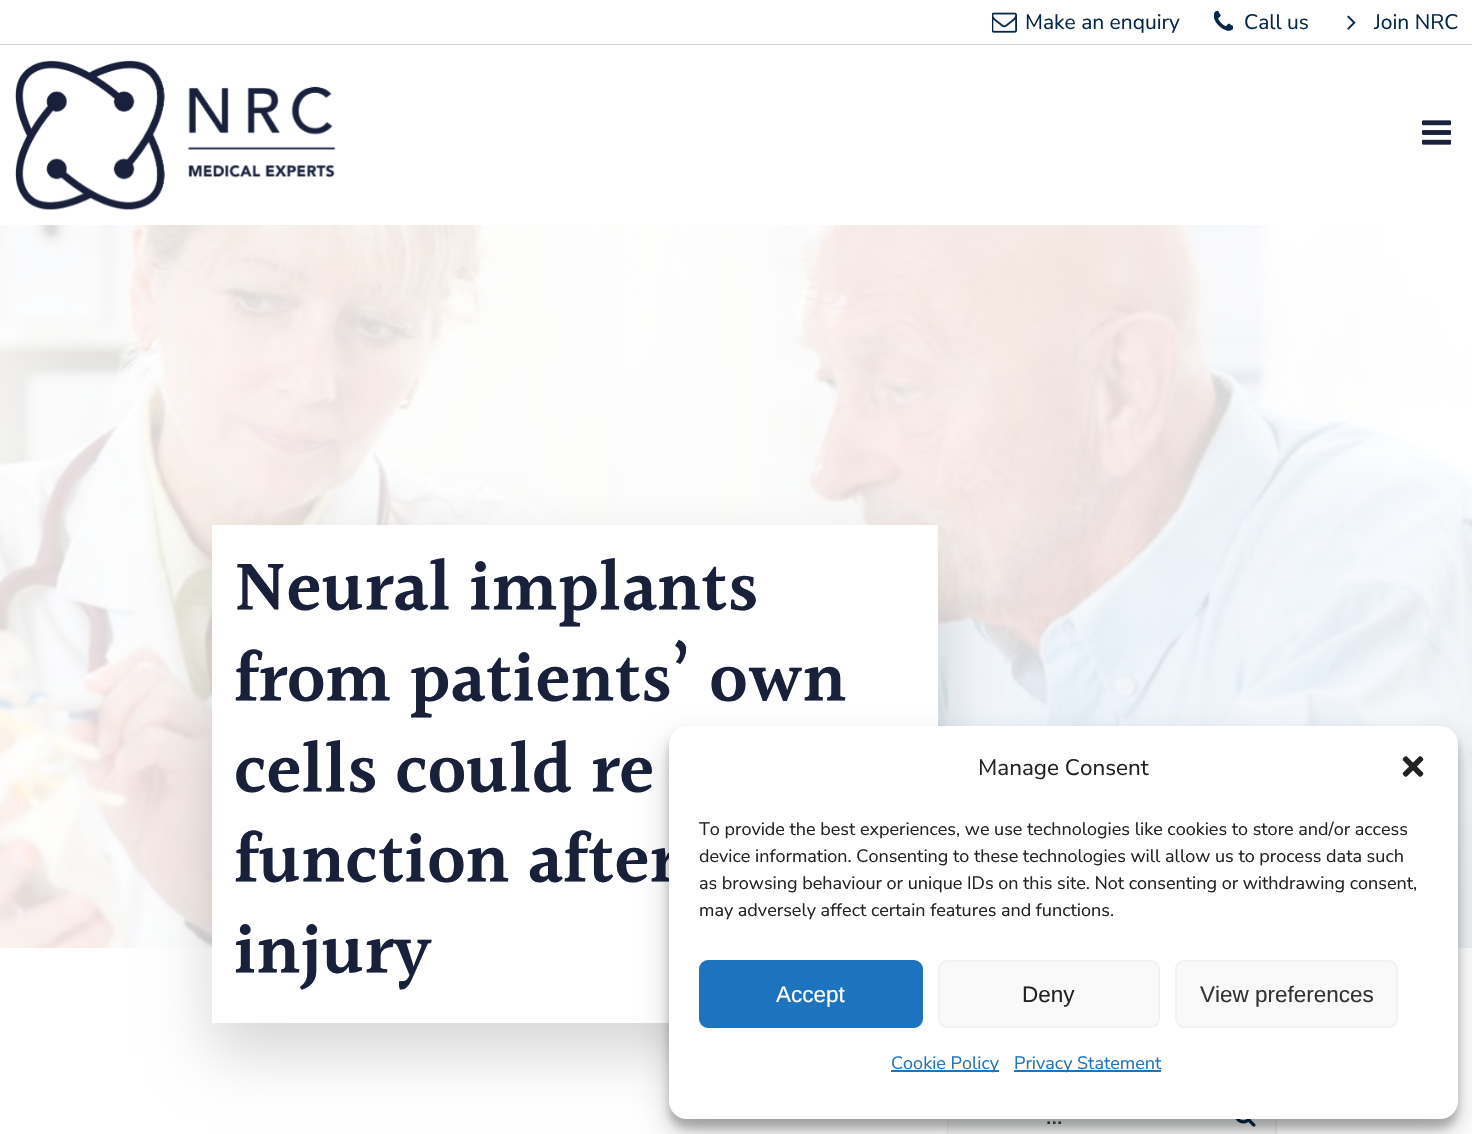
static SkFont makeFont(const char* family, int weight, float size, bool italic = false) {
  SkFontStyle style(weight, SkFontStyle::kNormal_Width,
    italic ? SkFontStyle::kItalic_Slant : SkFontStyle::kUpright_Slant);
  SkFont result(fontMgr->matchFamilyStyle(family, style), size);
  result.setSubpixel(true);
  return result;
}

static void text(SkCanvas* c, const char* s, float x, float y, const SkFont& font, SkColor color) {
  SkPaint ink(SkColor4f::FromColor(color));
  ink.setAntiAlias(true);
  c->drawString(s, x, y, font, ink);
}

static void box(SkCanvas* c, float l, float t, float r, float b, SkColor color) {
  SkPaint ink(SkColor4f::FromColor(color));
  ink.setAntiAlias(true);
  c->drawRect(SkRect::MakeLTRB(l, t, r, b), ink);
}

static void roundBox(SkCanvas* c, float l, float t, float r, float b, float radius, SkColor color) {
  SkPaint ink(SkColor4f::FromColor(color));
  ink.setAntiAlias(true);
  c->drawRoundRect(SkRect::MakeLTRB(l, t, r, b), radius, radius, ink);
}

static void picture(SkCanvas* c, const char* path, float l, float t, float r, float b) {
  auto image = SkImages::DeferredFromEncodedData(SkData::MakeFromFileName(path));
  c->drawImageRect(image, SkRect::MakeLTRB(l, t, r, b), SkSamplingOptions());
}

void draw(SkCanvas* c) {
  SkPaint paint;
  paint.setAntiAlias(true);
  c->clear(0xffffffff);
  box(c, 0, 44, 1472, 45, 0x3304274a);
  picture(c, "img_01.png", 992, 12, 1017, 33);
  SkFont face1 = makeFont("Nunito Sans", 400, 21);
  text(c, "Make an enquiry", 1025, 29, face1, 0xff04274a);
  picture(c, "img_02.png", 1214, 10, 1233, 31);
  text(c, "Call us", 1244, 29, face1, 0xff04274a);
  picture(c, "img_03.png", 1347, 15, 1356, 30);
  c->save();
  c->clipRect(SkRect::MakeLTRB(1374, 8, 1458, 36));
  text(c, "Join NRC", 1374, 29, face1, 0xff04274a);
  c->restore();
  picture(c, "img_04.png", 15, 60, 336, 210);
  picture(c, "img_05.png", 1422, 120, 1451, 145);
  picture(c, "img_06.png", 0, 225, 1472, 948);
  paint.setColor(0x29000000);
  paint.setMaskFilter(SkMaskFilter::MakeBlur(kNormal_SkBlurStyle, 28.5f));
  c->drawRect(SkRect::MakeLTRB(212, 554, 938, 1052), paint);
  paint.setMaskFilter(nullptr);
  box(c, 212, 525, 938, 1023, 0xffffffff);
  SkFont face2 = makeFont("Halant", 600, 72);
  text(c, "Neural implants", 234, 613, face2, 0xff18203a);
  text(c, "from patients’ own", 234, 704, face2, 0xff18203a);
  text(c, "cells could re", 234, 795, face2, 0xff18203a);
  text(c, "function after", 234, 885, face2, 0xff18203a);
  text(c, "injury", 234, 976, face2, 0xff18203a);
  paint.setStyle(SkPaint::kStroke_Style);
  paint.setStrokeWidth(2);
  paint.setColor(0xffeeeeee);
  c->drawRect(SkRect::MakeLTRB(948, 1084, 1276, 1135), paint);
  box(c, 948, 1119, 1275, 1134, 0xfff9fafb);
  SkFont face3 = makeFont("Nunito Sans", 400, 24);
  text(c, "…", 1046, 1124, face3, 0xff35404a);
  picture(c, "img_07.png", 1235, 1119, 1256, 1127);
  paint.setStyle(SkPaint::kFill_Style);
  paint.setColor(0x3b000000);
  paint.setMaskFilter(SkMaskFilter::MakeBlur(kNormal_SkBlurStyle, 4.5f));
  c->drawRoundRect(SkRect::MakeLTRB(669, 735, 1458, 1128), 18, 18, paint);
  paint.setMaskFilter(nullptr);
  paint.setColor(0x30000000);
  paint.setMaskFilter(SkMaskFilter::MakeBlur(kNormal_SkBlurStyle, 15));
  c->drawRoundRect(SkRect::MakeLTRB(669, 741, 1458, 1134), 18, 18, paint);
  paint.setMaskFilter(nullptr);
  roundBox(c, 669, 726, 1458, 1119, 18, 0xffffffff);
  SkFont face4 = makeFont("Nunito Sans", 400, 22.5f);
  text(c, "Manage Consent", 978, 775, face4, 0xff222222);
  picture(c, "img_08.png", 1402, 756, 1424, 777);
  SkFont face5 = makeFont("Nunito Sans", 400, 18);
  text(c, "To provide the best experiences, we use technologies like cookies to store and/or access", 699, 835, face5, 0xff222222);
  text(c, "device information. Consenting to these technologies will allow us to process data such", 699, 862, face5, 0xff222222);
  text(c, "as browsing behaviour or unique IDs on this site. Not consenting or withdrawing consent,", 699, 889, face5, 0xff222222);
  text(c, "may adversely affect certain features and functions.", 699, 916, face5, 0xff222222);
  paint.setColor(0xff1e73be);
  c->drawRoundRect(SkRect::MakeLTRB(700, 961, 922, 1027), 8, 8, paint);
  paint.setStyle(SkPaint::kStroke_Style);
  c->drawRoundRect(SkRect::MakeLTRB(700, 961, 922, 1027), 8, 8, paint);
  SkFont face6 = makeFont("Liberation Sans", 400, 22.5f);
  text(c, "Accept", 776, 1002, face6, 0xffffffff);
  paint.setStyle(SkPaint::kFill_Style);
  paint.setColor(0xfff9f9f9);
  c->drawRoundRect(SkRect::MakeLTRB(939, 961, 1159, 1027), 8, 8, paint);
  paint.setStyle(SkPaint::kStroke_Style);
  paint.setColor(0xfff2f2f2);
  c->drawRoundRect(SkRect::MakeLTRB(939, 961, 1159, 1027), 8, 8, paint);
  text(c, "Deny", 1022, 1002, face6, 0xff222222);
  paint.setStyle(SkPaint::kFill_Style);
  paint.setColor(0xfff9f9f9);
  c->drawRoundRect(SkRect::MakeLTRB(1176, 961, 1397, 1027), 8, 8, paint);
  paint.setStyle(SkPaint::kStroke_Style);
  paint.setColor(0xfff2f2f2);
  c->drawRoundRect(SkRect::MakeLTRB(1176, 961, 1397, 1027), 8, 8, paint);
  text(c, "View preferences", 1200, 1002, face6, 0xff333333);
  box(c, 891, 1070, 999, 1072, 0xff1e73be);
  text(c, "Cookie Policy", 891, 1069, face5, 0xff1e73be);
  box(c, 1014, 1070, 1161, 1072, 0xff1e73be);
  text(c, "Privacy Statement", 1014, 1069, face5, 0xff1e73be);
}
